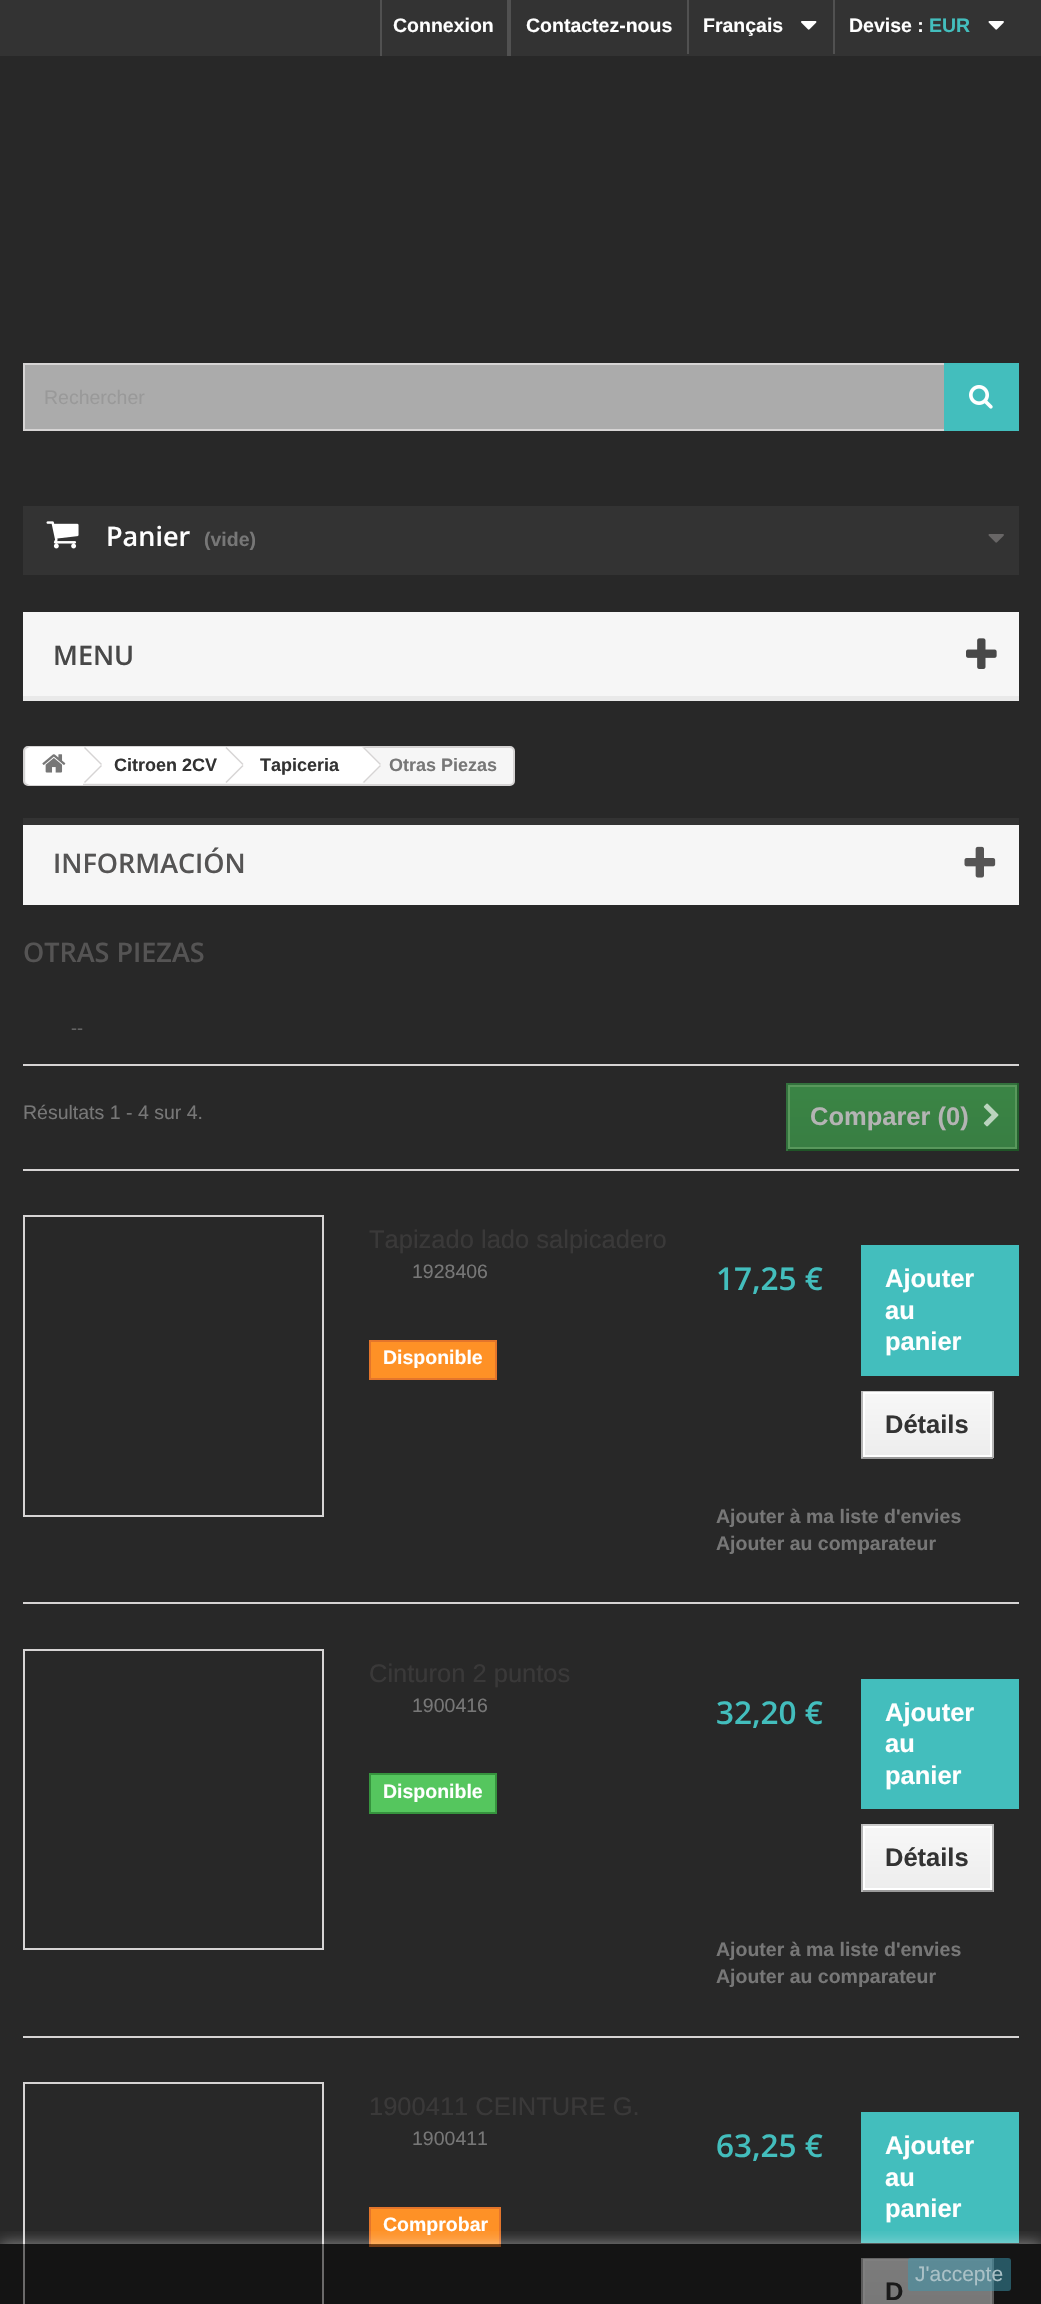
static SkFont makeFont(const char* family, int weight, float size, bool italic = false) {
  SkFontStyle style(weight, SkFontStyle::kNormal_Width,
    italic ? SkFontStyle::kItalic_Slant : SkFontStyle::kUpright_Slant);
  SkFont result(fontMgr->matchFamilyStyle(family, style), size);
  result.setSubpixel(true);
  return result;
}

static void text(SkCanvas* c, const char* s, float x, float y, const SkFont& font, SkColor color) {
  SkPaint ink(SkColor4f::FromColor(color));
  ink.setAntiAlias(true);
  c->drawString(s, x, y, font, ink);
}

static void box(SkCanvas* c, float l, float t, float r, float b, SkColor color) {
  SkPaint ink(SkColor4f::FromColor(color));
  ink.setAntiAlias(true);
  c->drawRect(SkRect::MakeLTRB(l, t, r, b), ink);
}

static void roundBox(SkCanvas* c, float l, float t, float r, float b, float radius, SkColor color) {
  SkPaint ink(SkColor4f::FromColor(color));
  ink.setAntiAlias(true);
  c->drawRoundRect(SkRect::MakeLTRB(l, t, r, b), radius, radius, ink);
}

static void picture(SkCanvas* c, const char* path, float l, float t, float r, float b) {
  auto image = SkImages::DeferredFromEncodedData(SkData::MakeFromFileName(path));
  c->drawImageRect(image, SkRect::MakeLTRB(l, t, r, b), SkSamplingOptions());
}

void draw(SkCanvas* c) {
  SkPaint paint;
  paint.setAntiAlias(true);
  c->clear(0xff282828);
  box(c, 0, 0, 1041, 56, 0xff333333);
  box(c, 380, 0, 382, 56, 0xff515151);
  SkFont face1 = makeFont("Liberation Sans", 700, 19.5f);
  text(c, "Connexion", 393, 32, face1, 0xffffffff);
  box(c, 507, 0, 511, 56, 0xff515151);
  text(c, "Contactez-nous", 526, 32, face1, 0xffffffff);
  box(c, 687, 0, 689, 54, 0xff515151);
  text(c, "Français", 703, 32, face1, 0xffffffff);
  picture(c, "img_01.png", 801, 21, 817, 30);
  box(c, 833, 0, 835, 54, 0xff515151);
  text(c, "Devise :", 849, 32, face1, 0xffffffff);
  text(c, "EUR", 929, 32, face1, 0xff43bebd);
  picture(c, "img_02.png", 988, 21, 1004, 30);
  box(c, 25, 365, 944, 429, 0xffababab);
  paint.setStyle(SkPaint::kStroke_Style);
  paint.setStrokeWidth(2);
  paint.setColor(0xffd6d4d4);
  c->drawRect(SkRect::MakeLTRB(24, 364, 1018, 430), paint);
  SkFont face2 = makeFont("Liberation Sans", 400, 19.5f);
  text(c, "Rechercher", 44, 404, face2, 0xff999999);
  box(c, 944, 363, 1019, 431, 0xff43bebd);
  picture(c, "img_03.png", 969, 385, 993, 409);
  box(c, 23, 506, 1019, 575, 0xff333333);
  picture(c, "img_04.png", 46, 521, 79, 549);
  SkFont face3 = makeFont("Open Sans", 600, 27);
  text(c, "Panier", 106, 546, face3, 0xffffffff);
  text(c, "(vide)", 204, 546, face1, 0xff777777);
  picture(c, "img_05.png", 988, 534, 1004, 543);
  box(c, 23, 612, 1019, 696, 0xfff6f6f6);
  box(c, 23, 696, 1019, 701, 0xffe9e9e9);
  text(c, "MENU", 53, 665, face3, 0xff484848);
  picture(c, "img_06.png", 966, 638, 997, 669);
  paint.setStyle(SkPaint::kFill_Style);
  paint.setColor(0xfff6f6f6);
  c->drawRoundRect(SkRect::MakeLTRB(24, 747, 514, 785), 4, 4, paint);
  paint.setStyle(SkPaint::kStroke_Style);
  paint.setColor(0xffd6d4d4);
  c->drawRoundRect(SkRect::MakeLTRB(24, 747, 514, 785), 4, 4, paint);
  paint.setStyle(SkPaint::kFill_Style);
  paint.setColor(0xffffffff);
  c->drawPath(SkPathBuilder().moveTo(31, 747).lineTo(83, 747).lineTo(83, 785).lineTo(31, 785).cubicTo(28, 785, 26, 783, 26, 780).lineTo(26, 752).cubicTo(26, 749, 28, 747, 31, 747).close().detach(), paint);
  picture(c, "img_07.png", 42, 754, 66, 773);
  box(c, 83, 747, 227, 783, 0xffffffff);
  paint.setColor(0xffd6d4d4);
  c->drawPath(SkPathBuilder().moveTo(85, 747).lineTo(102, 764).lineTo(101, 765).lineTo(84, 748).close().moveTo(101, 765).lineTo(102, 766).lineTo(85, 783).lineTo(84, 782).close().detach(), paint);
  SkFont face4 = makeFont("Liberation Sans", 700, 18);
  text(c, "Citroen 2CV", 114, 771, face4, 0xff333333);
  paint.setColor(0xffffffff);
  c->drawPath(SkPathBuilder().moveTo(242.5f, 748).lineTo(257.5f, 763).cubicTo(258.5f, 764, 258.5f, 766, 257.5f, 767).lineTo(242.5f, 782).cubicTo(241.5f, 783, 239.5f, 783, 238.5f, 782).lineTo(223.5f, 767).cubicTo(222.5f, 766, 222.5f, 764, 223.5f, 763).lineTo(238.5f, 748).cubicTo(239.5f, 747, 241.5f, 747, 242.5f, 748).close().detach(), paint);
  box(c, 227, 747, 362, 783, 0xffffffff);
  paint.setColor(0xffd6d4d4);
  c->drawPath(SkPathBuilder().moveTo(226.5f, 747).lineTo(243.5f, 764).lineTo(242.5f, 765).lineTo(225.5f, 748).close().moveTo(242.5f, 765).lineTo(243.5f, 766).lineTo(226.5f, 783).lineTo(225.5f, 782).close().detach(), paint);
  text(c, "Tapiceria", 260, 771, face4, 0xff333333);
  paint.setColor(0xffffffff);
  c->drawPath(SkPathBuilder().moveTo(365, 748).lineTo(380, 763).cubicTo(381.5f, 764, 381.5f, 766, 380, 767).lineTo(365, 782).cubicTo(364, 783, 362, 783, 361, 782).lineTo(346, 767).cubicTo(345, 766, 345, 764, 346, 763).lineTo(361, 748).cubicTo(362, 747, 364, 747, 365, 748).close().detach(), paint);
  paint.setColor(0xffd6d4d4);
  c->drawPath(SkPathBuilder().moveTo(364, 747).lineTo(381, 764).lineTo(380, 765).lineTo(363, 748).close().moveTo(380, 765).lineTo(381, 766).lineTo(364, 783).lineTo(363, 782).close().detach(), paint);
  text(c, "Otras Piezas", 389, 771, face4, 0xff777777);
  box(c, 23, 825, 1019, 905, 0xfff6f6f6);
  box(c, 23, 818, 1019, 825, 0xff333333);
  text(c, "INFORMACIÓN", 53, 873, face3, 0xff555454);
  picture(c, "img_08.png", 964, 846, 996, 878);
  text(c, "OTRAS PIEZAS", 23, 962, face3, 0xff555454);
  box(c, 23, 1064, 1019, 1066, 0xffd6d4d4);
  SkFont face5 = makeFont("Liberation Sans", 400, 18);
  text(c, "--", 71, 1034, face5, 0xff666666);
  text(c, "Résultats 1 - 4 sur 4.", 23, 1119, face2, 0xff777777);
  {
    const SkColor colors[] = {0xff3a8545, 0xff397e43};
    const float stops[] = {0, 1};
    const SkPoint ends[] = {{902, 1085}, {902, 1149}};
    paint.setShader(SkGradientShader::MakeLinear(ends, colors, stops, 2, SkTileMode::kClamp));
    paint.setAlpha(255);
  }
  c->drawRect(SkRect::MakeLTRB(790, 1087, 1015, 1147), paint);
  box(c, 786, 1083, 1019, 1085, 0xff33723d);
  box(c, 1017, 1083, 1019, 1151, 0xff25612f);
  box(c, 786, 1149, 1019, 1151, 0xff1f5527);
  box(c, 786, 1083, 788, 1151, 0xff33723d);
  paint.setStyle(SkPaint::kStroke_Style);
  paint.setShader(nullptr);
  paint.setColor(0xff59985c);
  c->drawRect(SkRect::MakeLTRB(789, 1086, 1016, 1148), paint);
  SkFont face6 = makeFont("Liberation Sans", 700, 25.5f);
  text(c, "Comparer (0)", 810, 1125, face6, 0xffb4b4b4);
  picture(c, "img_09.png", 983, 1103, 999, 1127);
  box(c, 23, 1169, 1019, 1171, 0xffd6d4d4);
  paint.setColor(0xffd6d4d4);
  c->drawRect(SkRect::MakeLTRB(24, 1216, 323, 1516), paint);
  SkFont face7 = makeFont("Liberation Sans", 400, 25.5f);
  text(c, "Tapizado lado salpicadero", 369, 1248, face7, 0xff3a3939);
  text(c, "1928406", 412, 1278, face2, 0xff777777);
  paint.setStyle(SkPaint::kFill_Style);
  paint.setColor(0xfffe9126);
  c->drawRect(SkRect::MakeLTRB(370, 1341, 496, 1379), paint);
  paint.setStyle(SkPaint::kStroke_Style);
  paint.setColor(0xffe4752b);
  c->drawRect(SkRect::MakeLTRB(370, 1341, 496, 1379), paint);
  text(c, "Disponible", 383, 1364, face1, 0xffffffff);
  SkFont face8 = makeFont("Open Sans", 600, 31.5f);
  text(c, "17,25 €", 716, 1290, face8, 0xff43bebd);
  paint.setColor(0xff43bebd);
  c->drawRect(SkRect::MakeLTRB(862, 1246, 1018, 1375), paint);
  box(c, 863, 1247, 1017, 1374, 0xff43bebd);
  text(c, "Ajouter", 885, 1287, face6, 0xffffffff);
  text(c, "au", 885, 1319, face6, 0xffffffff);
  text(c, "panier", 885, 1350, face6, 0xffffffff);
  box(c, 861, 1391, 993, 1392, 0xffcacaca);
  box(c, 992, 1391, 994, 1458, 0xffb7b7b7);
  box(c, 861, 1457, 993, 1459, 0xff9a9a9a);
  box(c, 861, 1391, 863, 1458, 0xffb7b7b7);
  paint.setStyle(SkPaint::kFill_Style);
  {
    const SkColor colors[] = {0xfff7f7f7, 0xffededed};
    const float stops[] = {0, 1};
    const SkPoint ends[] = {{927, 1394}, {927, 1455}};
    paint.setShader(SkGradientShader::MakeLinear(ends, colors, stops, 2, SkTileMode::kClamp));
    paint.setAlpha(255);
  }
  c->drawRect(SkRect::MakeLTRB(865, 1394, 990, 1455), paint);
  paint.setStyle(SkPaint::kStroke_Style);
  paint.setShader(nullptr);
  paint.setColor(0xffffffff);
  c->drawRect(SkRect::MakeLTRB(864, 1393, 991, 1456), paint);
  text(c, "Détails", 885, 1433, face6, 0xff333333);
  text(c, "Ajouter à ma liste d'envies", 716, 1523, face1, 0xff777777);
  text(c, "Ajouter au comparateur", 716, 1550, face1, 0xff777777);
  box(c, 23, 1602, 1019, 1604, 0xffd6d4d4);
  paint.setColor(0xffd6d4d4);
  c->drawRect(SkRect::MakeLTRB(24, 1650, 323, 1949), paint);
  text(c, "Cinturon 2 puntos", 369, 1682, face7, 0xff3a3939);
  text(c, "1900416", 412, 1712, face2, 0xff777777);
  paint.setStyle(SkPaint::kFill_Style);
  paint.setColor(0xff55c65e);
  c->drawRect(SkRect::MakeLTRB(370, 1774, 496, 1813), paint);
  paint.setStyle(SkPaint::kStroke_Style);
  paint.setColor(0xff36943e);
  c->drawRect(SkRect::MakeLTRB(370, 1774, 496, 1813), paint);
  text(c, "Disponible", 383, 1798, face1, 0xffffffff);
  text(c, "32,20 €", 716, 1724, face8, 0xff43bebd);
  paint.setColor(0xff43bebd);
  c->drawRect(SkRect::MakeLTRB(862, 1680, 1018, 1808), paint);
  box(c, 863, 1681, 1017, 1807, 0xff43bebd);
  text(c, "Ajouter", 885, 1721, face6, 0xffffffff);
  text(c, "au", 885, 1752, face6, 0xffffffff);
  text(c, "panier", 885, 1784, face6, 0xffffffff);
  box(c, 861, 1824, 993, 1826, 0xffcacaca);
  box(c, 992, 1824, 994, 1892, 0xffb7b7b7);
  box(c, 861, 1890, 993, 1892, 0xff9a9a9a);
  box(c, 861, 1824, 863, 1892, 0xffb7b7b7);
  paint.setStyle(SkPaint::kFill_Style);
  {
    const SkColor colors[] = {0xfff7f7f7, 0xffededed};
    const float stops[] = {0, 1};
    const SkPoint ends[] = {{927, 1827}, {927, 1889}};
    paint.setShader(SkGradientShader::MakeLinear(ends, colors, stops, 2, SkTileMode::kClamp));
    paint.setAlpha(255);
  }
  c->drawRect(SkRect::MakeLTRB(865, 1828, 990, 1888), paint);
  paint.setStyle(SkPaint::kStroke_Style);
  paint.setShader(nullptr);
  paint.setColor(0xffffffff);
  c->drawRect(SkRect::MakeLTRB(864, 1827, 991, 1889), paint);
  text(c, "Détails", 885, 1866, face6, 0xff333333);
  text(c, "Ajouter à ma liste d'envies", 716, 1956, face1, 0xff777777);
  text(c, "Ajouter au comparateur", 716, 1983, face1, 0xff777777);
  box(c, 23, 2036, 1019, 2038, 0xffd6d4d4);
  paint.setColor(0xffd6d4d4);
  c->drawRect(SkRect::MakeLTRB(24, 2083, 323, 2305), paint);
  text(c, "1900411 CEINTURE G.", 369, 2115, face7, 0xff3a3939);
  text(c, "1900411", 412, 2145, face2, 0xff777777);
  paint.setStyle(SkPaint::kFill_Style);
  paint.setColor(0xfffe9126);
  c->drawRect(SkRect::MakeLTRB(370, 2208, 500, 2246), paint);
  paint.setStyle(SkPaint::kStroke_Style);
  paint.setColor(0xffe4752b);
  c->drawRect(SkRect::MakeLTRB(370, 2208, 500, 2246), paint);
  text(c, "Comprobar", 383, 2231, face1, 0xffffffff);
  text(c, "63,25 €", 716, 2157, face8, 0xff43bebd);
  paint.setColor(0xff43bebd);
  c->drawRect(SkRect::MakeLTRB(862, 2113, 1018, 2242), paint);
  box(c, 863, 2114, 1017, 2241, 0xff43bebd);
  text(c, "Ajouter", 885, 2154, face6, 0xffffffff);
  text(c, "au", 885, 2186, face6, 0xffffffff);
  text(c, "panier", 885, 2217, face6, 0xffffffff);
  box(c, 861, 2258, 993, 2259, 0xffcacaca);
  box(c, 992, 2258, 994, 2304, 0xffb7b7b7);
  box(c, 861, 2258, 863, 2304, 0xffb7b7b7);
  paint.setStyle(SkPaint::kFill_Style);
  {
    const SkColor colors[] = {0xfff7f7f7, 0xffededed};
    const float stops[] = {0, 1};
    const SkPoint ends[] = {{927, 2261}, {927, 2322}};
    paint.setShader(SkGradientShader::MakeLinear(ends, colors, stops, 2, SkTileMode::kClamp));
    paint.setAlpha(255);
  }
  c->drawRect(SkRect::MakeLTRB(865, 2261, 990, 2304), paint);
  paint.setStyle(SkPaint::kStroke_Style);
  paint.setShader(nullptr);
  paint.setColor(0xffffffff);
  c->drawRect(SkRect::MakeLTRB(864, 2260, 991, 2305), paint);
  text(c, "D", 885, 2300, face6, 0xff333333);
  c->save();
  c->clipRect(SkRect::MakeLTRB(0, 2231, 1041, 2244));
  paint.setStyle(SkPaint::kFill_Style);
  paint.setColor(0x80ffffff);
  paint.setMaskFilter(SkMaskFilter::MakeBlur(kNormal_SkBlurStyle, 7.5f));
  c->drawRect(SkRect::MakeLTRB(0, 2244, 1041, 2304), paint);
  paint.setMaskFilter(nullptr);
  c->restore();
  box(c, 0, 2244, 1041, 2304, 0x80000000);
  roundBox(c, 908, 2258, 1011, 2291, 3, 0x803a98b0);
  SkFont face9 = makeFont("Liberation Sans", 400, 21);
  text(c, "J'accepte", 915, 2281, face9, 0xffaac1c7);
}
